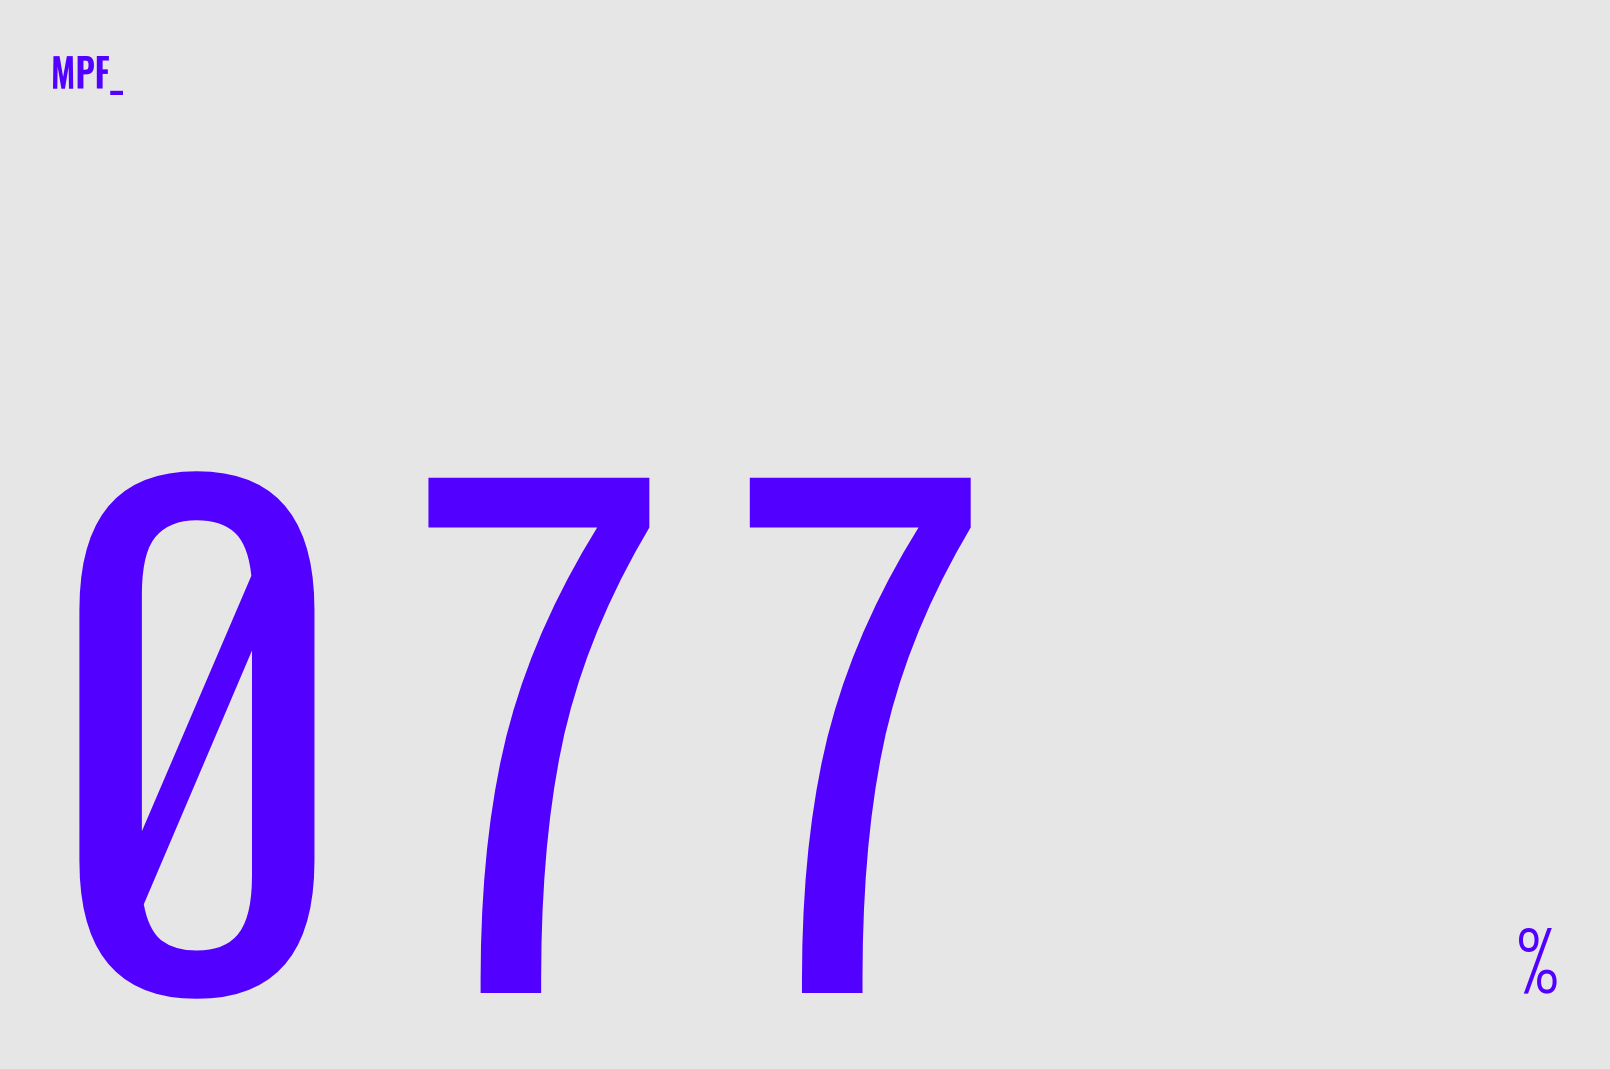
static SkFont makeFont(const char* family, int weight, float size, bool italic = false) {
  SkFontStyle style(weight, SkFontStyle::kNormal_Width,
    italic ? SkFontStyle::kItalic_Slant : SkFontStyle::kUpright_Slant);
  SkFont result(fontMgr->matchFamilyStyle(family, style), size);
  result.setSubpixel(true);
  return result;
}

static void spacedText(SkCanvas* c, const char* s, float x, float y, const SkFont& font, const SkPaint& ink, float letter, float word) {
  std::vector<SkGlyphID> glyphs(font.countText(s, strlen(s), SkTextEncoding::kUTF8));
  std::vector<float> xs(glyphs.size());
  font.textToGlyphs(s, strlen(s), SkTextEncoding::kUTF8, glyphs);
  font.getXPos(glyphs, xs, x);
  float extra = 0;
  for (size_t i = 0; i < glyphs.size(); i++) {
    xs[i] += extra;
    extra += letter + word * (glyphs[i] == font.unicharToGlyph(' '));
  }
  c->drawTextBlob(SkTextBlob::MakeFromPosHGlyphs(glyphs, xs, y, font), 0, 0, ink);
}

static void picture(SkCanvas* c, const char* path, float l, float t, float r, float b) {
  auto image = SkImages::DeferredFromEncodedData(SkData::MakeFromFileName(path));
  c->drawImageRect(image, SkRect::MakeLTRB(l, t, r, b), SkSamplingOptions());
}

void draw(SkCanvas* c) {
  SkPaint paint;
  paint.setAntiAlias(true);
  c->clear(0xffe6e6e6);
  picture(c, "img_01.png", 53, 56, 123, 95);
  SkFont face1 = makeFont("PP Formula", 400, 644);
  paint.setColor(0xff5200ff);
  spacedText(c, "077", 53, 993, face1, paint, 80.5f, 0);
  picture(c, "img_02.png", 1519, 928, 1557, 994);
}
